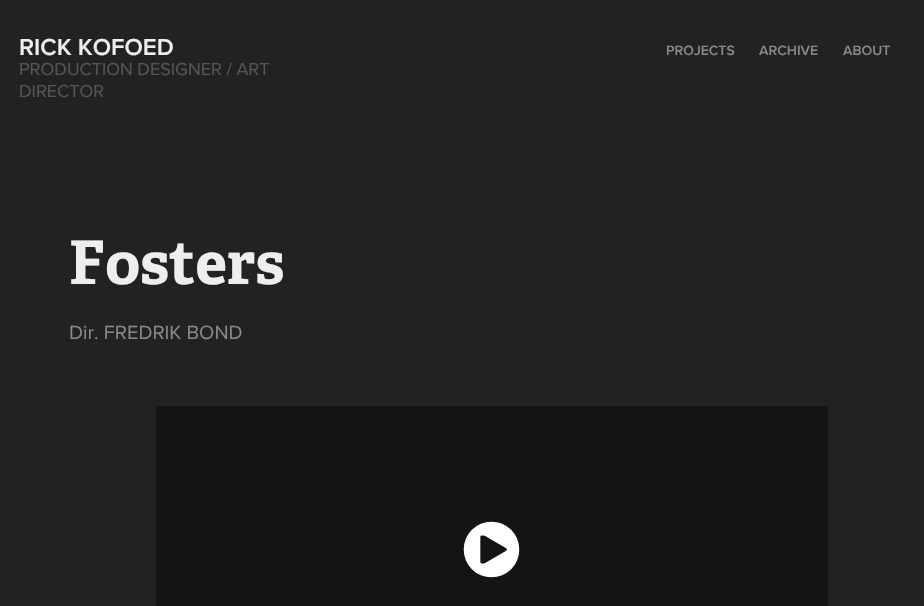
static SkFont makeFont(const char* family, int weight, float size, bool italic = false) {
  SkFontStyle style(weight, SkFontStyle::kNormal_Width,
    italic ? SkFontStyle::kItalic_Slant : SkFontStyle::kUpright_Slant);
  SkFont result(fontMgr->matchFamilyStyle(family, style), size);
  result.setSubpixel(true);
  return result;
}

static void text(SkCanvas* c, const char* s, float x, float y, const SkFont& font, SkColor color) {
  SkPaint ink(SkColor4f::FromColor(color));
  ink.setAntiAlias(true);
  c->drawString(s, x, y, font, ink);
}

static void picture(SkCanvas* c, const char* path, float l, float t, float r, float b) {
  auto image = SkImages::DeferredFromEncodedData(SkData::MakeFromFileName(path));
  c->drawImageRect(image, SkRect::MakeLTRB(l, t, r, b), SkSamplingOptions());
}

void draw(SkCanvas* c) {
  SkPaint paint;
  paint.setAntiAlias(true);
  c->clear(0xff222222);
  SkFont face1 = makeFont("Proxima Nova", 600, 24);
  text(c, "RICK KOFOED", 19, 55, face1, 0xffeeeeee);
  SkFont face2 = makeFont("Proxima Nova", 400, 18);
  text(c, "PRODUCTION DESIGNER / ART", 19, 75, face2, 0xff555555);
  text(c, "DIRECTOR", 19, 97, face2, 0xff555555);
  SkFont face3 = makeFont("Proxima Nova", 600, 14);
  text(c, "PROJECTS", 666, 55, face3, 0xff888888);
  text(c, "ARCHIVE", 759, 55, face3, 0xff888888);
  text(c, "ABOUT", 843, 55, face3, 0xff888888);
  SkFont face4 = makeFont("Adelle", 700, 60);
  text(c, "Fosters", 69, 284, face4, 0xffeeeeee);
  SkFont face5 = makeFont("Proxima Nova", 400, 20);
  text(c, "Dir. FREDRIK BOND", 69, 339, face5, 0xff888888);
  picture(c, "img_01.png", 156, 406, 828, 606);
}
